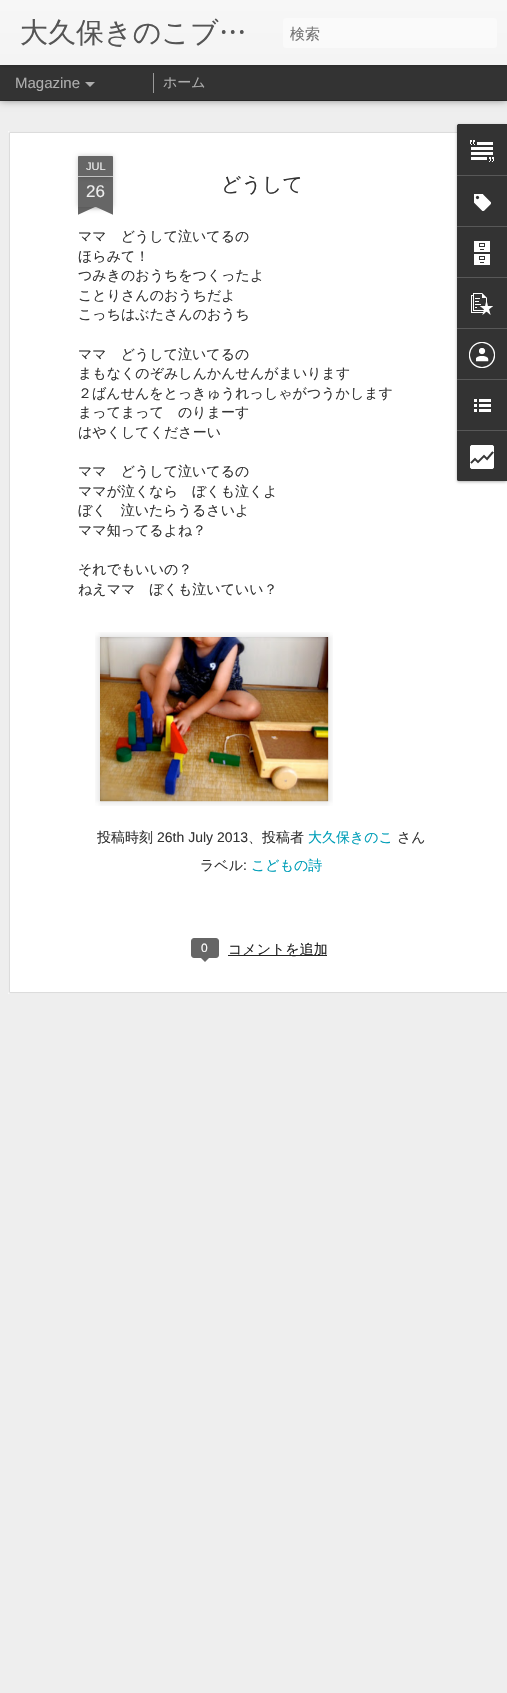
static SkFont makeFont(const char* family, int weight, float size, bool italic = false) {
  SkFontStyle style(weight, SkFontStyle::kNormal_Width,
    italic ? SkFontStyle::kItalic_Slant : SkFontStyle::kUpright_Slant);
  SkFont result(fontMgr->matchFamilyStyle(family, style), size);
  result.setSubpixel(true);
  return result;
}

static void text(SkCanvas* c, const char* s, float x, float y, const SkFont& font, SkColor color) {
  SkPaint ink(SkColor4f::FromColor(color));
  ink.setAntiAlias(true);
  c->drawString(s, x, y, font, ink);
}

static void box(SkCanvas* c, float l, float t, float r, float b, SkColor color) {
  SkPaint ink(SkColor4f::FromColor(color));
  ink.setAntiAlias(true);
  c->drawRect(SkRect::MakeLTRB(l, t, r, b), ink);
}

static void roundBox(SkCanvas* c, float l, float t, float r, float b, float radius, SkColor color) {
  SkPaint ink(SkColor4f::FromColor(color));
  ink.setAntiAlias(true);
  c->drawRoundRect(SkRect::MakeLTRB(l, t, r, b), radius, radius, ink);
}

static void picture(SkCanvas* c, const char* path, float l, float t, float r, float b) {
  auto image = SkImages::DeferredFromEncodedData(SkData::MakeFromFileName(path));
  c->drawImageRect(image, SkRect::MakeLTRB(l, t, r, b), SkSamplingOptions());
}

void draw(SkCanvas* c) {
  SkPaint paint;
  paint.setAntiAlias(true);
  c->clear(0xff333333);
  box(c, 0, 101, 507, 1693, 0xffeeeeee);
  paint.setColor(0x80000000);
  paint.setMaskFilter(SkMaskFilter::MakeBlur(kNormal_SkBlurStyle, 4));
  c->drawRect(SkRect::MakeLTRB(0, 65, 507, 100), paint);
  paint.setMaskFilter(nullptr);
  box(c, 0, 65, 507, 100, 0xff333333);
  box(c, 153, 73, 154, 93, 0xff999999);
  paint.setColor(0x4d000000);
  paint.setMaskFilter(SkMaskFilter::MakeBlur(kNormal_SkBlurStyle, 2.5f));
  c->drawRect(SkRect::MakeLTRB(0, 0, 507, 65), paint);
  paint.setMaskFilter(nullptr);
  {
    const SkColor colors[] = {0xfff7f7f7, 0xfff4f4f4};
    const float stops[] = {0, 1};
    const SkPoint ends[] = {{0, 0}, {0, 65}};
    paint.setShader(SkGradientShader::MakeLinear(ends, colors, stops, 2, SkTileMode::kClamp));
    paint.setAlpha(255);
  }
  c->drawRect(SkRect::MakeLTRB(0, 0, 507, 65), paint);
  SkFont face1 = makeFont("WenQuanYi Zen Hei", 500, 28);
  text(c, "大久保きのこブ…", 20, 42, face1, 0xff555555);
  roundBox(c, 283, 18, 497, 48, 3, 0xfffafafa);
  SkFont face2 = makeFont("WenQuanYi Zen Hei", 500, 15);
  text(c, "検索", 290, 39, face2, 0xff757575);
  SkFont face3 = makeFont("Liberation Sans", 400, 15);
  text(c, "Magazine", 15, 88, face3, 0xffadadad);
  paint.setShader(nullptr);
  paint.setColor(0xffadadad);
  c->drawPath(SkPathBuilder().moveTo(85, 82).lineTo(95, 82).lineTo(90, 87).close().detach(), paint);
  SkFont face4 = makeFont("WenQuanYi Zen Hei", 500, 14);
  text(c, "ホーム", 163, 87, face4, 0xffadadad);
  box(c, 8, 131, 507, 994, 0xffffffff);
  picture(c, "img_01.png", 8, 131, 507, 994);
  paint.setColor(0x33000000);
  paint.setMaskFilter(SkMaskFilter::MakeBlur(kNormal_SkBlurStyle, 2.5f));
  c->drawRect(SkRect::MakeLTRB(78, 177, 113, 207), paint);
  paint.setMaskFilter(nullptr);
  box(c, 78, 177, 113, 207, 0xff666666);
  paint.setMaskFilter(SkMaskFilter::MakeBlur(kNormal_SkBlurStyle, 2.5f));
  c->drawRoundRect(SkRect::MakeLTRB(78, 156, 113, 177), 1, 1, paint);
  paint.setMaskFilter(nullptr);
  paint.setColor(0xff666666);
  c->drawPath(SkPathBuilder().moveTo(79, 156).lineTo(112, 156).cubicTo(112.5f, 156, 113, 156.5f, 113, 157).lineTo(113, 177).lineTo(78, 177).lineTo(78, 157).cubicTo(78, 156.5f, 78.5f, 156, 79, 156).close().detach(), paint);
  box(c, 78, 176, 113, 177, 0xffc2c2c2);
  SkFont face5 = makeFont("Liberation Sans", 400, 11);
  text(c, "JUL", 86, 170, face5, 0xffeeeeee);
  SkFont face6 = makeFont("Liberation Sans", 400, 17);
  text(c, "26", 86, 197, face6, 0xffeeeeee);
  c->save();
  c->clipRect(SkRect::MakeLTRB(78, 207, 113, 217));
  paint.setColor(0x33000000);
  paint.setMaskFilter(SkMaskFilter::MakeBlur(kNormal_SkBlurStyle, 2.5f));
  c->drawRect(SkRect::MakeLTRB(69, 197, 119, 207), paint);
  paint.setMaskFilter(nullptr);
  c->restore();
  c->save();
  c->clipRect(SkRect::MakeLTRB(78, 207, 113, 217));
  paint.setColor(0xff666666);
  c->drawPath(SkPathBuilder().moveTo(69, 208).lineTo(115, 187).lineTo(119, 196).lineTo(73, 217).close().detach(), paint);
  c->restore();
  c->save();
  c->clipRect(SkRect::MakeLTRB(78, 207, 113, 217));
  paint.setColor(0x33000000);
  paint.setMaskFilter(SkMaskFilter::MakeBlur(kNormal_SkBlurStyle, 2.5f));
  c->drawRect(SkRect::MakeLTRB(72, 197, 122, 207), paint);
  paint.setMaskFilter(nullptr);
  c->restore();
  c->save();
  c->clipRect(SkRect::MakeLTRB(78, 207, 113, 217));
  paint.setColor(0xff666666);
  c->drawPath(SkPathBuilder().moveTo(76, 187).lineTo(122, 208).lineTo(118, 217).lineTo(72, 196).close().detach(), paint);
  c->restore();
  SkFont face7 = makeFont("WenQuanYi Zen Hei", 500, 20);
  text(c, "どうして", 221, 191, face7, 0xff333333);
  text(c, "ママ　どうして泣いてるの", 78, 241, face4, 0xff333333);
  text(c, "ほらみて！", 78, 261, face4, 0xff333333);
  text(c, "つみきのおうちをつくったよ", 78, 280, face4, 0xff333333);
  text(c, "ことりさんのおうちだよ", 78, 300, face4, 0xff333333);
  text(c, "こっちはぶたさんのおうち", 78, 319, face4, 0xff333333);
  text(c, "ママ　どうして泣いてるの", 78, 359, face4, 0xff333333);
  text(c, "まもなくのぞみしんかんせんがまいります", 78, 378, face4, 0xff333333);
  text(c, "２ばんせんをとっきゅうれっしゃがつうかします", 78, 398, face4, 0xff333333);
  text(c, "まってまって　のりまーす", 78, 417, face4, 0xff333333);
  text(c, "はやくしてくださーい", 78, 437, face4, 0xff333333);
  text(c, "ママ　どうして泣いてるの", 78, 476, face4, 0xff333333);
  text(c, "ママが泣くなら　ぼくも泣くよ", 78, 496, face4, 0xff333333);
  text(c, "ぼく　泣いたらうるさいよ", 78, 515, face4, 0xff333333);
  text(c, "ママ知ってるよね？", 78, 535, face4, 0xff333333);
  text(c, "それでもいいの？", 78, 574, face4, 0xff333333);
  text(c, "ねえママ　ぼくも泣いていい？", 78, 594, face4, 0xff333333);
  picture(c, "img_02.png", 95, 632, 333, 806);
  picture(c, "img_03.png", 100, 637, 329, 802);
  text(c, "投稿時刻", 97, 842, face4, 0xff333333);
  SkFont face8 = makeFont("Liberation Sans", 400, 14);
  text(c, "26th July 2013", 157, 842, face8, 0xff333333);
  text(c, "、投稿者", 248, 842, face4, 0xff333333);
  text(c, "大久保きのこ", 308, 842, face4, 0xff009eb8);
  text(c, "さん", 397, 842, face4, 0xff333333);
  text(c, "ラベル", 200, 870, face4, 0xff333333);
  text(c, ":", 243, 870, face8, 0xff333333);
  text(c, "こどもの詩", 251, 870, face4, 0xff009eb8);
  c->drawRoundRect(SkRect::MakeLTRB(191.5f, 938.5f, 218.5f, 957.5f), 2.5f, 2.5f, paint);
  paint.setStyle(SkPaint::kStroke_Style);
  paint.setStrokeWidth(1);
  c->drawRoundRect(SkRect::MakeLTRB(191.5f, 938.5f, 218.5f, 957.5f), 2.5f, 2.5f, paint);
  SkFont face9 = makeFont("Liberation Sans", 400, 12);
  text(c, "0", 201, 952, face9, 0xffffffff);
  paint.setStyle(SkPaint::kFill_Style);
  c->drawPath(SkPathBuilder().moveTo(200, 957).lineTo(210, 957).lineTo(205, 962).close().detach(), paint);
  box(c, 228, 955, 327, 956, 0xff222222);
  text(c, "コメントを追加", 228, 954, face4, 0xff222222);
  paint.setColor(0x4d000000);
  paint.setMaskFilter(SkMaskFilter::MakeBlur(kNormal_SkBlurStyle, 1.5f));
  c->drawRoundRect(SkRect::MakeLTRB(457, 125, 507, 482), 2, 2, paint);
  paint.setMaskFilter(nullptr);
  paint.setColor(0xff333333);
  c->drawPath(SkPathBuilder().moveTo(459, 124).lineTo(507, 124).lineTo(507, 481).lineTo(459, 481).cubicTo(458, 481, 457, 480, 457, 479).lineTo(457, 126).cubicTo(457, 125, 458, 124, 459, 124).close().detach(), paint);
  c->drawPath(SkPathBuilder().moveTo(459, 124).lineTo(507, 124).lineTo(507, 175).lineTo(457, 175).lineTo(457, 126).cubicTo(457, 125, 458, 124, 459, 124).close().detach(), paint);
  picture(c, "img_04.png", 470, 140, 494, 162);
  box(c, 457, 175, 507, 176, 0xff585858);
  picture(c, "img_05.png", 474, 194, 491, 211);
  box(c, 457, 226, 507, 227, 0xff585858);
  picture(c, "img_06.png", 474, 241, 490, 265);
  box(c, 457, 277, 507, 278, 0xff585858);
  picture(c, "img_07.png", 471, 293, 493, 315);
  box(c, 457, 328, 507, 329, 0xff585858);
  picture(c, "img_08.png", 469, 342, 495, 368);
  box(c, 457, 379, 507, 380, 0xff585858);
  picture(c, "img_09.png", 474, 399, 491, 412);
  c->drawPath(SkPathBuilder().moveTo(457, 430).lineTo(507, 430).lineTo(507, 481).lineTo(459, 481).cubicTo(458, 481, 457, 480, 457, 479).close().detach(), paint);
  box(c, 457, 430, 507, 431, 0xff585858);
  picture(c, "img_10.png", 470, 445, 494, 469);
}
